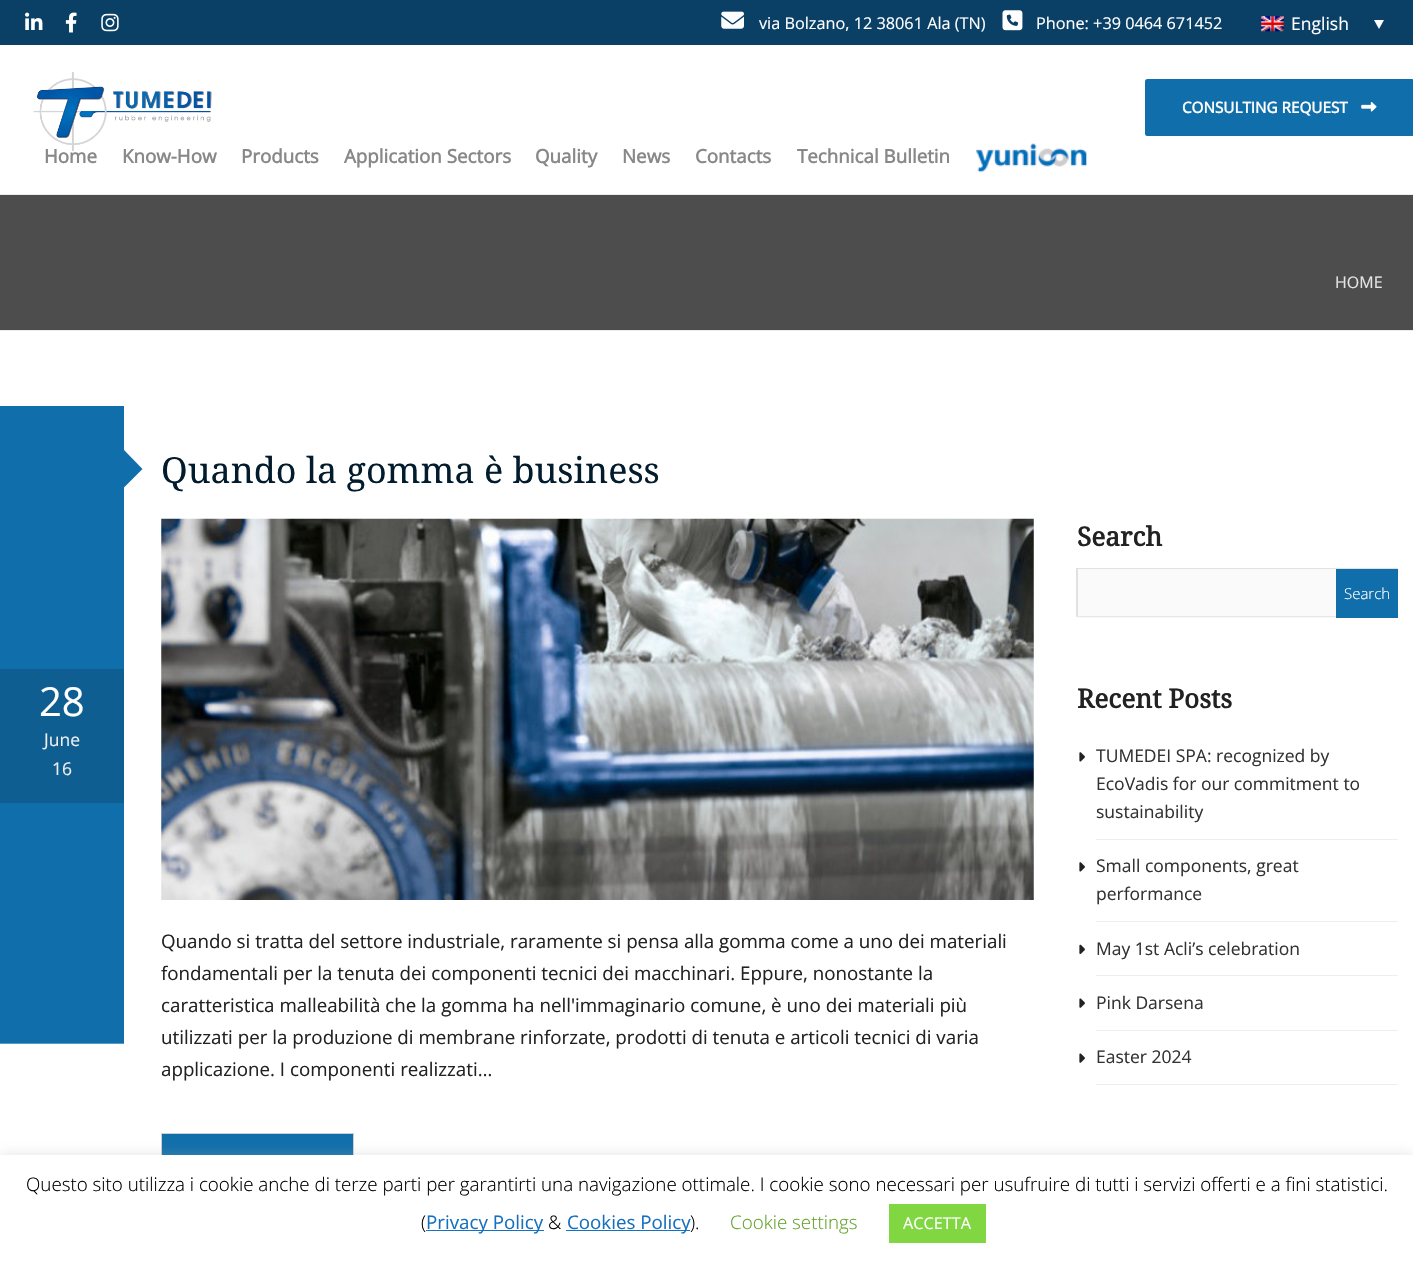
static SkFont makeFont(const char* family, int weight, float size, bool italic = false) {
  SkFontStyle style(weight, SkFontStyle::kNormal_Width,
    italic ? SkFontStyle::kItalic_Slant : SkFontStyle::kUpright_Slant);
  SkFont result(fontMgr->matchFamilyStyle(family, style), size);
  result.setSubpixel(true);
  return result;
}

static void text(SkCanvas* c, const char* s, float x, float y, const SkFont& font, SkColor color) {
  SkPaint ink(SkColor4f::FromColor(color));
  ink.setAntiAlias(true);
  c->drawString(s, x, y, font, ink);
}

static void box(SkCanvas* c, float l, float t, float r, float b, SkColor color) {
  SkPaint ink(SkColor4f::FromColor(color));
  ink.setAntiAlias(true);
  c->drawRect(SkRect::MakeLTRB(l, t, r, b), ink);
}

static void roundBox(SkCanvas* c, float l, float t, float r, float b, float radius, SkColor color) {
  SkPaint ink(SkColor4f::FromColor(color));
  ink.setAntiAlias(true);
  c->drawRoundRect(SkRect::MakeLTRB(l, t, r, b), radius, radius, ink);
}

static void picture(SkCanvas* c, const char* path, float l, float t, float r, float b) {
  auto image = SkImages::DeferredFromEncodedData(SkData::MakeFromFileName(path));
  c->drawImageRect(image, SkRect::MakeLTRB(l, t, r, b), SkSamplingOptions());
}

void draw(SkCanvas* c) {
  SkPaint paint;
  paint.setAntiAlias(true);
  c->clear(0xffffffff);
  box(c, 0, 0, 1413, 45, 0xff0a3f66);
  picture(c, "img_01.png", 25, 12, 43, 30);
  picture(c, "img_02.png", 65, 12, 77, 33);
  picture(c, "img_03.png", 101, 13, 119, 32);
  picture(c, "img_04.png", 721, 11, 744, 29);
  SkFont face1 = makeFont("Open Sans", 400, 16.25f);
  text(c, "via Bolzano, 12 38061 Ala (TN)", 759, 29, face1, 0xffffffff);
  picture(c, "img_05.png", 1002, 10, 1023, 31);
  text(c, "Phone: +39 0464 671452", 1036, 29, face1, 0xffffffff);
  picture(c, "img_06.png", 1261, 16, 1284, 32);
  SkFont face2 = makeFont("Open Sans", 400, 17.5f);
  text(c, "English", 1291, 30, face2, 0xffffffff);
  paint.setColor(0xffffffff);
  c->drawPath(SkPathBuilder().moveTo(1374, 20).lineTo(1384, 20).lineTo(1379, 29).close().detach(), paint);
  picture(c, "img_07.png", 33, 72, 212, 151);
  roundBox(c, 1145, 79, 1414, 136, 2.5f, 0xff106eaa);
  SkFont face3 = makeFont("Open Sans", 700, 15.25f);
  text(c, "CONSULTING REQUEST", 1182, 113, face3, 0xffffffff);
  picture(c, "img_08.png", 1361, 102, 1377, 112);
  SkFont face4 = makeFont("Open Sans", 700, 18.75f);
  text(c, "Home", 44, 163, face4, 0xff888888);
  text(c, "Know-How", 122, 163, face4, 0xff888888);
  text(c, "Products", 241, 163, face4, 0xff888888);
  text(c, "Application Sectors", 344, 163, face4, 0xff888888);
  text(c, "Quality", 535, 163, face4, 0xff888888);
  text(c, "News", 622, 163, face4, 0xff888888);
  text(c, "Contacts", 695, 163, face4, 0xff888888);
  text(c, "Technical Bulletin", 797, 163, face4, 0xff888888);
  picture(c, "img_09.png", 976, 143, 1087, 172);
  box(c, 0, 194, 1413, 195, 0xffebeded);
  box(c, 0, 330, 1413, 331, 0xffebeded);
  box(c, 0, 195, 1413, 330, 0xff4d4d4d);
  SkFont face5 = makeFont("Open Sans", 400, 16);
  text(c, "HOME", 1335, 288, face5, 0xffe4e4e4);
  box(c, 0, 406, 124, 1043, 0xff106eaa);
  box(c, 0, 1043, 124, 1044, 0xff589ac4);
  paint.setColor(0xff106eaa);
  c->drawPath(SkPathBuilder().moveTo(124, 487.5f).lineTo(124, 450).lineTo(142.5f, 469).close().detach(), paint);
  box(c, 0, 669, 124, 803, 0xff0e5e91);
  SkFont face6 = makeFont("Open Sans", 400, 40);
  text(c, "28", 39, 716, face6, 0xffffffff);
  text(c, "June", 44, 746, face2, 0xffeeeeee);
  text(c, "16", 52, 775, face2, 0xffeeeeee);
  SkFont face7 = makeFont("Noto Serif", 400, 35.9f);
  text(c, "Quando la gomma è business", 161, 483, face7, 0xff021c2e);
  picture(c, "img_10.png", 161, 518, 1034, 900);
  SkFont face8 = makeFont("Open Sans", 400, 18.75f);
  text(c, "Quando si tratta del settore industriale, raramente si pensa alla gomma come a uno dei materiali", 161, 948, face8, 0xff222222);
  text(c, "fondamentali per la tenuta dei componenti tecnici dei macchinari. Eppure, nonostante la", 161, 980, face8, 0xff222222);
  text(c, "caratteristica malleabilità che la gomma ha nell'immaginario comune, è uno dei materiali più", 161, 1012, face8, 0xff222222);
  text(c, "utilizzati per la produzione di membrane rinforzate, prodotti di tenuta e articoli tecnici di varia", 161, 1044, face8, 0xff222222);
  text(c, "applicazione. I componenti realizzati…", 161, 1076, face8, 0xff222222);
  box(c, 162, 1134, 353, 1155, 0xff106eaa);
  paint.setStyle(SkPaint::kStroke_Style);
  paint.setStrokeWidth(1);
  paint.setColor(0xffcfcfd0);
  c->drawRect(SkRect::MakeLTRB(161.5f, 1133.5f, 353.5f, 1193.5f), paint);
  SkFont face9 = makeFont("Noto Serif", 700, 26.25f);
  text(c, "Search", 1077, 546, face9, 0xff222222);
  box(c, 1076, 569, 1336, 618, 0xfffafafa);
  c->save();
  c->clipRect(SkRect::MakeLTRB(1076, 568, 1398, 616));
  paint.setStyle(SkPaint::kFill_Style);
  paint.setColor(0xffe1e1e1);
  c->drawPath(SkPathBuilder(SkPathFillType::kEvenOdd).moveTo(952, 444).lineTo(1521, 444).lineTo(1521, 740).lineTo(952, 740).close().moveTo(1078, 569).lineTo(1399, 569).lineTo(1399, 618).lineTo(1078, 618).close().detach(), paint);
  c->restore();
  box(c, 1076, 616, 1336, 617, 0xffe7e7e7);
  box(c, 1336, 569, 1398, 618, 0xff106eaa);
  SkFont face10 = makeFont("Open Sans", 300, 15);
  text(c, "Search", 1344, 599, face10, 0xffffffff);
  text(c, "Recent Posts", 1077, 708, face9, 0xff222222);
  box(c, 1096, 839, 1398, 840, 0xffeeeeee);
  picture(c, "img_11.png", 1079, 752, 1085, 762);
  text(c, "TUMEDEI SPA: recognized by", 1096, 762, face2, 0xff333333);
  text(c, "EcoVadis for our commitment to", 1096, 790, face2, 0xff333333);
  text(c, "sustainability", 1096, 818, face2, 0xff333333);
  box(c, 1096, 921, 1398, 922, 0xffeeeeee);
  picture(c, "img_11.png", 1079, 862, 1085, 872);
  text(c, "Small components, great", 1096, 872, face2, 0xff333333);
  text(c, "performance", 1096, 900, face2, 0xff333333);
  box(c, 1096, 975, 1398, 976, 0xffeeeeee);
  picture(c, "img_12.png", 1079, 944, 1085, 954);
  text(c, "May 1st Acli’s celebration", 1096, 955, face2, 0xff333333);
  box(c, 1096, 1030, 1398, 1031, 0xffeeeeee);
  picture(c, "img_13.png", 1079, 998, 1085, 1008);
  text(c, "Pink Darsena", 1096, 1009, face2, 0xff333333);
  box(c, 1096, 1084, 1398, 1085, 0xffeeeeee);
  picture(c, "img_13.png", 1079, 1053, 1085, 1063);
  text(c, "Easter 2024", 1096, 1063, face2, 0xff333333);
  paint.setColor(0x4dacabab);
  paint.setMaskFilter(SkMaskFilter::MakeBlur(kNormal_SkBlurStyle, 6));
  c->drawRect(SkRect::MakeLTRB(0, 1154, 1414, 1263), paint);
  paint.setMaskFilter(nullptr);
  box(c, 0, 1155, 1413, 1263, 0xffffffff);
  SkFont face11 = makeFont("Open Sans", 300, 18.75f);
  text(c, "Questo sito utilizza i cookie anche di terze parti per garantirti una navigazione ottimale. I cookie sono necessari per usufruire di tutti i servizi offerti e a fini statistici.", 26, 1191, face11, 0xff000000);
  text(c, "(", 421, 1229, face11, 0xff000000);
  box(c, 426, 1230, 544, 1231, 0xff1670bf);
  text(c, "Privacy Policy", 426, 1229, face8, 0xff1670bf);
  text(c, "&", 548, 1229, face11, 0xff000000);
  box(c, 566, 1230, 690, 1231, 0xff1670bf);
  text(c, "Cookies Policy", 567, 1229, face8, 0xff1670bf);
  text(c, ").", 690, 1229, face11, 0xff000000);
  text(c, "Cookie settings", 730, 1229, face11, 0xff62a329);
  box(c, 889, 1204, 986, 1243, 0xff81d742);
  text(c, "ACCETTA", 903, 1229, face1, 0xffffffff);
}
